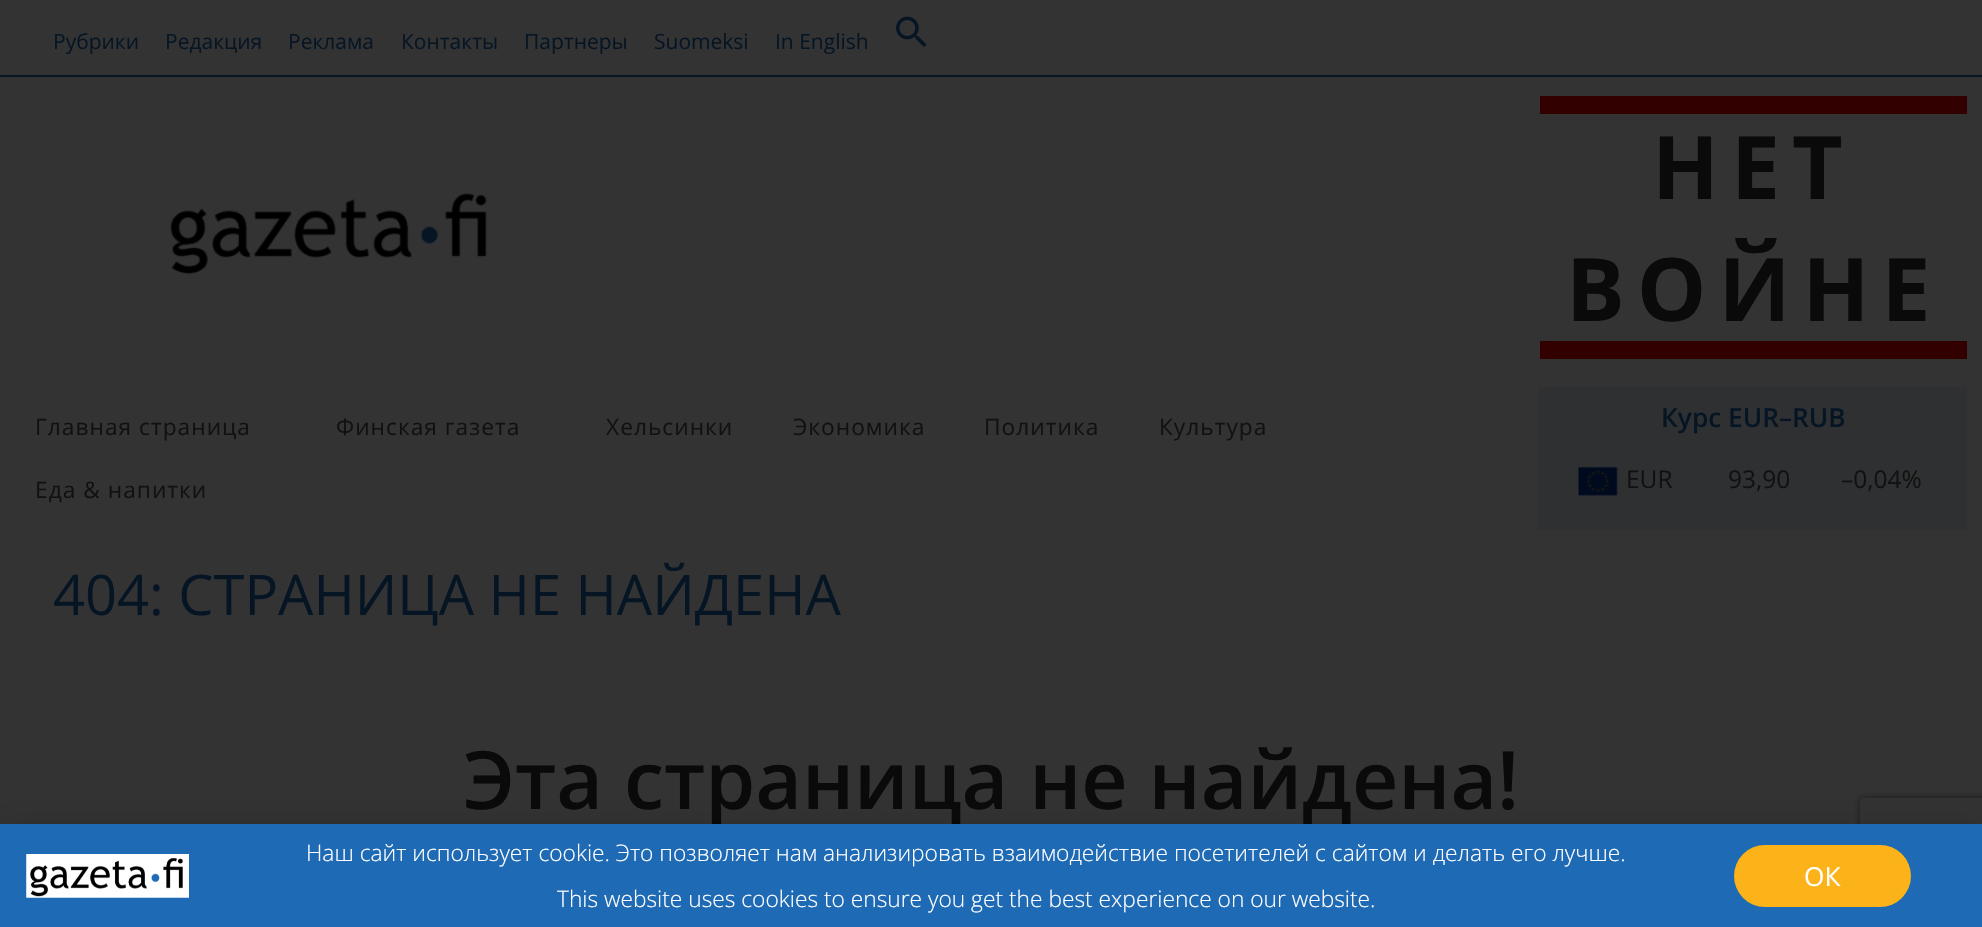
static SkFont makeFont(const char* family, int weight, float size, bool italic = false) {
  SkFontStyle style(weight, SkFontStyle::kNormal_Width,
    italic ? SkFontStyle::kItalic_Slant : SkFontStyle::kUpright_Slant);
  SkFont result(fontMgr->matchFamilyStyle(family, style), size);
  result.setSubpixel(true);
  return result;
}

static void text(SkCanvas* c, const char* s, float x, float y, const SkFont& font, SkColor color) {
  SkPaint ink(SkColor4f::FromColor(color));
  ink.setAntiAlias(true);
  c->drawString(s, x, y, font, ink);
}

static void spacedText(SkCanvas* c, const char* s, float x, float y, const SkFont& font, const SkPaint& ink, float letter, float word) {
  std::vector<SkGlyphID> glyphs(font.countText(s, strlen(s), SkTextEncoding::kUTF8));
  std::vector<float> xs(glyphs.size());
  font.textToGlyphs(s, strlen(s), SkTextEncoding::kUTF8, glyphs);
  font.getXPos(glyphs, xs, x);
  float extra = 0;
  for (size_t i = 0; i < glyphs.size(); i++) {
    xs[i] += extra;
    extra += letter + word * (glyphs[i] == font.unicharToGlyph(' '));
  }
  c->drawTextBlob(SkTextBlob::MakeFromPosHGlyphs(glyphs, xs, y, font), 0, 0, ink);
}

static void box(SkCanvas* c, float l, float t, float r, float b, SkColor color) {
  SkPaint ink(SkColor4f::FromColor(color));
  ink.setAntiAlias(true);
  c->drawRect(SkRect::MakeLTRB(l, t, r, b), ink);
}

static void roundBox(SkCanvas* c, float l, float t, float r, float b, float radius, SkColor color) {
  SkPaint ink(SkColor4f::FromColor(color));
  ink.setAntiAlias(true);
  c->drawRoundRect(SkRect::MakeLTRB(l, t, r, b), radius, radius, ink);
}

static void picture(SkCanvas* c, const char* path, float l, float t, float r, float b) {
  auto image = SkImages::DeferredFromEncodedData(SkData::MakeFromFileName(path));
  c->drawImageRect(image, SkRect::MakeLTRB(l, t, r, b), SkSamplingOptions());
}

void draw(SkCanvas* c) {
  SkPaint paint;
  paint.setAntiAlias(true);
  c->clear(0xff333333);
  box(c, 0, 75, 1982, 77, 0xff061524);
  SkFont face1 = makeFont("Open Sans", 400, 21);
  text(c, "Рубрики", 53, 49, face1, 0xff061524);
  text(c, "Редакция", 165, 49, face1, 0xff061524);
  text(c, "Реклама", 288, 49, face1, 0xff061524);
  text(c, "Контакты", 401, 49, face1, 0xff061524);
  text(c, "Партнеры", 524, 49, face1, 0xff061524);
  text(c, "Suomeksi", 654, 49, face1, 0xff061524);
  text(c, "In English", 775, 49, face1, 0xff061524);
  picture(c, "img_01.png", 896, 16, 927, 48);
  picture(c, "img_02.png", 170, 193, 487, 275);
  box(c, 1540, 96, 1967, 114, 0xff330000);
  box(c, 1540, 341, 1967, 359, 0xff330000);
  SkFont face2 = makeFont("Open Sans", 700, 87.5f);
  paint.setColor(0xff0a0a0a);
  spacedText(c, "НЕТ", 1652, 199, face2, paint, 12, 0);
  spacedText(c, "ВОЙНЕ", 1566, 321, face2, paint, 12, 0);
  SkFont face3 = makeFont("Open Sans", 400, 22.75f);
  paint.setColor(0xff111111);
  spacedText(c, "Главная страница", 35, 435, face3, paint, 1, 0);
  spacedText(c, "Финская газета", 336, 435, face3, paint, 1, 0);
  spacedText(c, "Хельсинки", 606, 435, face3, paint, 1, 0);
  spacedText(c, "Экономика", 793, 435, face3, paint, 1, 0);
  spacedText(c, "Политика", 984, 435, face3, paint, 1, 0);
  spacedText(c, "Культура", 1159, 435, face3, paint, 1, 0);
  spacedText(c, "Еда & напитки", 35, 498, face3, paint, 1, 0);
  box(c, 1538, 387, 1967, 530, 0xff2f3032);
  SkFont face4 = makeFont("Open Sans", 600, 26.25f);
  text(c, "Курс EUR–RUB", 1661, 427, face4, 0xff061524);
  picture(c, "img_03.png", 1578, 466, 1618, 496);
  SkFont face5 = makeFont("Open Sans", 400, 24.5f);
  text(c, "EUR", 1626, 488, face5, 0xff111111);
  text(c, "93,90", 1728, 488, face5, 0xff111111);
  box(c, 1559, 520, 1958, 522, 0xff2f2f2f);
  text(c, "–0,04%", 1841, 488, face5, 0xff111111);
  SkFont face6 = makeFont("Open Sans", 400, 56);
  text(c, "404: СТРАНИЦА НЕ НАЙДЕНА", 53, 615, face6, 0xff061524);
  SkFont face7 = makeFont("Open Sans", 600, 80.5f);
  text(c, "Эта страница не найдена!", 463, 809, face7, 0xff0a0a0a);
  paint.setColor(0x33000000);
  paint.setMaskFilter(SkMaskFilter::MakeBlur(kNormal_SkBlurStyle, 20));
  c->drawRect(SkRect::MakeLTRB(-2, 833, 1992, 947), paint);
  paint.setMaskFilter(nullptr);
  c->save();
  c->clipPath(SkPathBuilder(SkPathFillType::kEvenOdd).moveTo(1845, 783).lineTo(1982, 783).lineTo(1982, 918).lineTo(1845, 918).close().moveTo(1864, 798).lineTo(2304, 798).cubicTo(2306, 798, 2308, 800, 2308, 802).lineTo(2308, 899).cubicTo(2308, 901, 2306, 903, 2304, 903).lineTo(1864, 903).cubicTo(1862, 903, 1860, 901, 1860, 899).lineTo(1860, 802).cubicTo(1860, 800, 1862, 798, 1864, 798).close().detach(), true);
  paint.setColor(0xff1a1a1a);
  paint.setMaskFilter(SkMaskFilter::MakeBlur(kNormal_SkBlurStyle, 4.5f));
  c->drawRoundRect(SkRect::MakeLTRB(1860, 798, 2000, 903), 4, 4, paint);
  paint.setMaskFilter(nullptr);
  c->restore();
  box(c, 0, 824, 1982, 927, 0xff1f6ab4);
  picture(c, "img_04.png", 26, 854, 189, 898);
  SkFont face8 = makeFont("Open Sans", 300, 22.75f);
  text(c, "Наш сайт использует cookie. Это позволяет нам анализировать взаимодействие посетителей с сайтом и делать его лучше.", 306, 861, face8, 0xffffffff);
  text(c, "This website uses cookies to ensure you get the best experience on our website.", 557, 907, face8, 0xffffffff);
  roundBox(c, 1734, 845, 1911, 907, 31, 0xfffcb319);
  SkFont face9 = makeFont("Open Sans", 400, 26.25f);
  text(c, "ОК", 1804, 886, face9, 0xffffffff);
}
